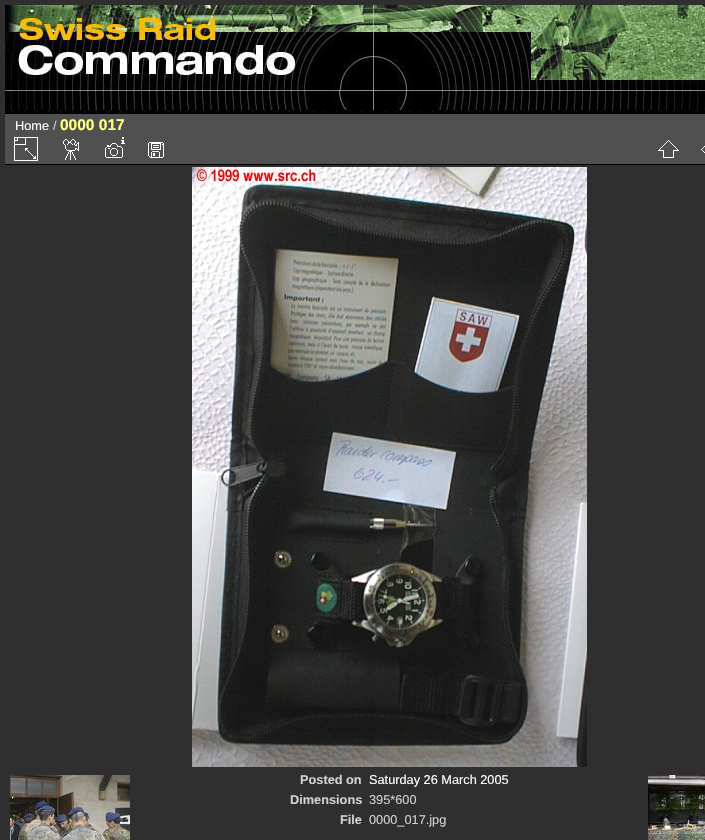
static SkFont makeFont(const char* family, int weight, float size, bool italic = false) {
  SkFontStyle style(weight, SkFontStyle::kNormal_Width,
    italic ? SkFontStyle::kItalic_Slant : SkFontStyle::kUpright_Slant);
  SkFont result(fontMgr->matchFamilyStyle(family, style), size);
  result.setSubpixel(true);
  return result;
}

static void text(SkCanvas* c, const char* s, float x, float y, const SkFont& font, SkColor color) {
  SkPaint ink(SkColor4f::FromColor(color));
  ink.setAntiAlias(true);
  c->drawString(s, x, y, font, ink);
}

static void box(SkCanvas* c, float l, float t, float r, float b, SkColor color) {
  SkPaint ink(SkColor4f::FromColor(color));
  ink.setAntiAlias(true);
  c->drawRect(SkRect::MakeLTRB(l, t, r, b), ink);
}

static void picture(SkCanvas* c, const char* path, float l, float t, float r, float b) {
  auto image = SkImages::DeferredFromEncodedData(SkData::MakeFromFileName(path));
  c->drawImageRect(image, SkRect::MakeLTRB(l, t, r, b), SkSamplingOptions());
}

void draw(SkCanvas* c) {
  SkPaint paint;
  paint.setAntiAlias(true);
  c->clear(0xff2f2f2f);
  picture(c, "img_01.png", 5, 110, 705, 113);
  picture(c, "img_02.png", 5, 5, 705, 110);
  box(c, 5, 114, 705, 164, 0xff505050);
  box(c, 5, 164, 705, 165, 0xff000000);
  picture(c, "img_03.png", 14, 137, 38, 161);
  picture(c, "img_04.png", 63, 139, 79, 160);
  picture(c, "img_05.png", 105, 137, 125, 158);
  picture(c, "img_06.png", 148, 142, 164, 158);
  picture(c, "img_07.png", 658, 140, 679, 158);
  picture(c, "img_08.png", 701, 146, 705, 153);
  box(c, 5, 113, 705, 114, 0xff000000);
  SkFont face1 = makeFont("Liberation Sans", 400, 12.75f);
  text(c, "Home", 15, 130, face1, 0xffffffff);
  text(c, "/", 53, 130, face1, 0xffd0d0d0);
  SkFont face2 = makeFont("Liberation Sans", 700, 15.5f);
  text(c, "0000 017", 60, 130, face2, 0xffffff80);
  picture(c, "img_09.png", 192, 167, 587, 767);
  SkFont face3 = makeFont("Liberation Sans", 700, 12.75f);
  text(c, "Posted on", 300, 784, face3, 0xffd0d0d0);
  text(c, "Saturday 26 March 2005", 369, 784, face1, 0xffffffff);
  text(c, "Dimensions", 290, 804, face3, 0xffd0d0d0);
  text(c, "395*600", 369, 804, face1, 0xffd0d0d0);
  text(c, "File", 340, 824, face3, 0xffd0d0d0);
  text(c, "0000_017.jpg", 369, 824, face1, 0xffd0d0d0);
  picture(c, "img_10.png", 10, 775, 130, 840);
  picture(c, "img_11.png", 648, 775, 705, 840);
}
